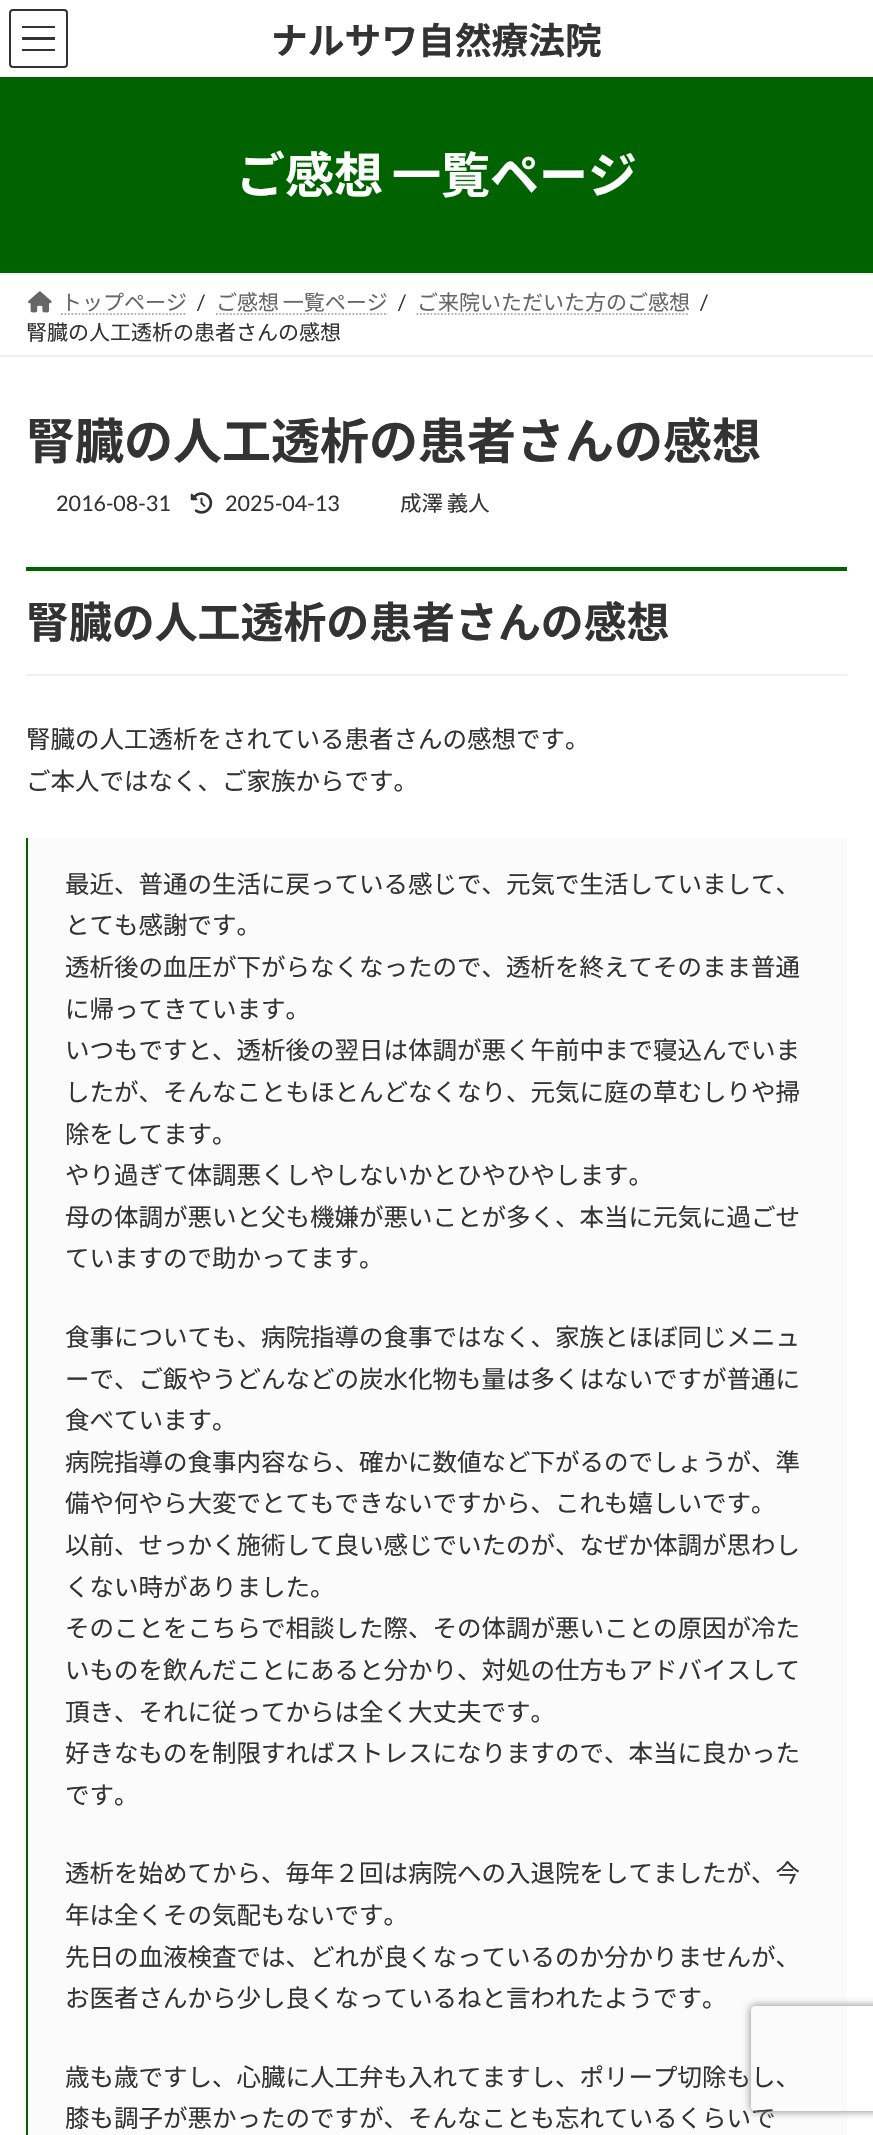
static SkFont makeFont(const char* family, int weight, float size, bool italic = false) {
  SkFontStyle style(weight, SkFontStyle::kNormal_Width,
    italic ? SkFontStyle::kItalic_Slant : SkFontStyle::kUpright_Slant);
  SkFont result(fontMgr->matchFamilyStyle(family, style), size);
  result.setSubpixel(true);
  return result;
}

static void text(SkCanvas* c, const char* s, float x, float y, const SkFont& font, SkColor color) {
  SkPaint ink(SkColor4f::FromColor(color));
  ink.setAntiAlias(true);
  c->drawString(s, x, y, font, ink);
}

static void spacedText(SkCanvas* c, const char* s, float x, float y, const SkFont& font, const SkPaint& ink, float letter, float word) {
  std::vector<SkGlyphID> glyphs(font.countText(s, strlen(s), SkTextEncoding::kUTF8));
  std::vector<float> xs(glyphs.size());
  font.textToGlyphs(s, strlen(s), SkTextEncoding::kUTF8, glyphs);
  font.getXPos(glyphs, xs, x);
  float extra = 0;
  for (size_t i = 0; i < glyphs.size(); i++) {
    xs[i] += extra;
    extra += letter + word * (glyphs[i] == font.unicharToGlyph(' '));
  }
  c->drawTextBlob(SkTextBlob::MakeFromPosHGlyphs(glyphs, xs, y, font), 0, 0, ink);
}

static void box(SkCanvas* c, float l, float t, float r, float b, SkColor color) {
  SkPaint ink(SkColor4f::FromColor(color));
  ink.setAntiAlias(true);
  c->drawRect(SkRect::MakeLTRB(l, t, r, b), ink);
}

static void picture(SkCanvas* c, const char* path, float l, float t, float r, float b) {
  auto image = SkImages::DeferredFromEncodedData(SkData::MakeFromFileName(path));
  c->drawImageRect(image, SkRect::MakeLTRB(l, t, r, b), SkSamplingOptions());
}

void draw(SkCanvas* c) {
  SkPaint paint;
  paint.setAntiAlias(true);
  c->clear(0xffffffff);
  box(c, 22, 26, 55, 28, 0xff333333);
  box(c, 22, 37, 55, 40, 0xff333333);
  box(c, 22, 49, 55, 51, 0xff333333);
  paint.setStyle(SkPaint::kStroke_Style);
  paint.setStrokeWidth(2);
  paint.setColor(0xff333333);
  c->drawRoundRect(SkRect::MakeLTRB(10, 10, 67, 67), 3, 3, paint);
  SkFont face1 = makeFont("Noto Sans JP", 700, 36.75f);
  text(c, "ナルサワ自然療法院", 271, 54, face1, 0xff333333);
  box(c, 0, 77, 873, 273, 0xff006300);
  SkFont face2 = makeFont("Noto Sans JP", 700, 49);
  paint.setStyle(SkPaint::kFill_Style);
  paint.setColor(0xffffffff);
  spacedText(c, "ご感想 一覧ページ", 236, 193, face2, paint, 0, -2);
  box(c, 0, 273, 873, 275, 0xfff0f0f0);
  box(c, 0, 355, 873, 357, 0xfff0f0f0);
  picture(c, "img_01.png", 28, 291, 52, 313);
  SkFont face3 = makeFont("Noto Sans JP", 400, 21);
  text(c, "トップページ", 61, 310, face3, 0xff666666);
  paint.setStyle(SkPaint::kStroke_Style);
  paint.setStrokeWidth(1.8f);
  paint.setColor(0xffb3b3b3);
  paint.setPathEffect(SkDashPathEffect::Make({{1.75f, 1.75f}}, 0));
  c->drawPath(SkPathBuilder().moveTo(61, 314).lineTo(187, 314).detach(), paint);
  paint.setPathEffect(nullptr);
  SkFont face4 = makeFont("Lato", 400, 21);
  text(c, "/", 197, 310, face4, 0xff333333);
  paint.setStyle(SkPaint::kFill_Style);
  paint.setColor(0xff666666);
  spacedText(c, "ご感想 一覧ページ", 216, 310, face3, paint, 0, -1);
  paint.setStyle(SkPaint::kStroke_Style);
  paint.setColor(0xffb3b3b3);
  paint.setPathEffect(SkDashPathEffect::Make({{1.75f, 1.75f}}, 0));
  c->drawPath(SkPathBuilder().moveTo(216, 314).lineTo(388, 314).detach(), paint);
  paint.setPathEffect(nullptr);
  text(c, "/", 398, 310, face4, 0xff333333);
  text(c, "ご来院いただいた方のご感想", 417, 310, face3, 0xff666666);
  paint.setPathEffect(SkDashPathEffect::Make({{1.75f, 1.75f}}, 0));
  c->drawPath(SkPathBuilder().moveTo(416.5f, 314).lineTo(689.5f, 314).detach(), paint);
  paint.setPathEffect(nullptr);
  text(c, "/", 700, 310, face4, 0xff333333);
  text(c, "腎臓の人工透析の患者さんの感想", 26, 340, face3, 0xff333333);
  text(c, "腎臓の人工透析の患者さんの感想", 26, 459, face2, 0xff333333);
  SkFont face5 = makeFont("Lato", 400, 21.5f);
  text(c, "2016-08-31", 56, 511, face5, 0xff333333);
  picture(c, "img_02.png", 190, 492, 213, 514);
  text(c, "2025-04-13", 225, 511, face5, 0xff333333);
  SkFont face6 = makeFont("Noto Sans JP", 400, 21.5f);
  paint.setStyle(SkPaint::kFill_Style);
  paint.setColor(0xff333333);
  spacedText(c, "成澤 義人", 400, 511, face6, paint, 0, -1);
  box(c, 26, 567, 847, 571, 0xff006300);
  box(c, 26, 674, 847, 676, 0xfff0f0f0);
  SkFont face7 = makeFont("Noto Sans JP", 700, 42.9f);
  text(c, "腎臓の人工透析の患者さんの感想", 26, 638, face7, 0xff333333);
  SkFont face8 = makeFont("Noto Sans JP", 400, 24.5f);
  text(c, "腎臓の人工透析をされている患者さんの感想です。", 26, 748, face8, 0xff333333);
  text(c, "ご本人ではなく、ご家族からです。", 26, 790, face8, 0xff333333);
  box(c, 28, 838, 847, 2135, 0xfffbfbfb);
  box(c, 26, 838, 28, 2135, 0xff006300);
  text(c, "最近、普通の生活に戻っている感じで、元気で生活していまして、", 65, 893, face8, 0xff333333);
  text(c, "とても感謝です。", 65, 934, face8, 0xff333333);
  text(c, "透析後の血圧が下がらなくなったので、透析を終えてそのまま普通", 65, 976, face8, 0xff333333);
  text(c, "に帰ってきています。", 65, 1018, face8, 0xff333333);
  text(c, "いつもですと、透析後の翌日は体調が悪く午前中まで寝込んでいま", 65, 1059, face8, 0xff333333);
  text(c, "したが、そんなこともほとんどなくなり、元気に庭の草むしりや掃", 65, 1101, face8, 0xff333333);
  text(c, "除をしてます。", 65, 1143, face8, 0xff333333);
  text(c, "やり過ぎて体調悪くしやしないかとひやひやします。", 65, 1184, face8, 0xff333333);
  text(c, "母の体調が悪いと父も機嫌が悪いことが多く、本当に元気に過ごせ", 65, 1226, face8, 0xff333333);
  text(c, "ていますので助かってます。", 65, 1267, face8, 0xff333333);
  text(c, "食事についても、病院指導の食事ではなく、家族とほぼ同じメニュ", 65, 1346, face8, 0xff333333);
  text(c, "ーで、ご飯やうどんなどの炭水化物も量は多くはないですが普通に", 65, 1388, face8, 0xff333333);
  text(c, "食べています。", 65, 1429, face8, 0xff333333);
  text(c, "病院指導の食事内容なら、確かに数値など下がるのでしょうが、準", 65, 1471, face8, 0xff333333);
  text(c, "備や何やら大変でとてもできないですから、これも嬉しいです。", 65, 1512, face8, 0xff333333);
  text(c, "以前、せっかく施術して良い感じでいたのが、なぜか体調が思わし", 65, 1554, face8, 0xff333333);
  text(c, "くない時がありました。", 65, 1596, face8, 0xff333333);
  text(c, "そのことをこちらで相談した際、その体調が悪いことの原因が冷た", 65, 1637, face8, 0xff333333);
  text(c, "いものを飲んだことにあると分かり、対処の仕方もアドバイスして", 65, 1679, face8, 0xff333333);
  text(c, "頂き、それに従ってからは全く大丈夫です。", 65, 1721, face8, 0xff333333);
  text(c, "好きなものを制限すればストレスになりますので、本当に良かった", 65, 1762, face8, 0xff333333);
  text(c, "です。", 65, 1804, face8, 0xff333333);
  text(c, "透析を始めてから、毎年２回は病院への入退院をしてましたが、今", 65, 1882, face8, 0xff333333);
  text(c, "年は全くその気配もないです。", 65, 1924, face8, 0xff333333);
  text(c, "先日の血液検査では、どれが良くなっているのか分かりませんが、", 65, 1966, face8, 0xff333333);
  text(c, "お医者さんから少し良くなっているねと言われたようです。", 65, 2007, face8, 0xff333333);
  text(c, "歳も歳ですし、心臓に人工弁も入れてますし、ポリープ切除もし、", 65, 2086, face8, 0xff333333);
  text(c, "膝も調子が悪かったのですが、そんなことも忘れているくらいで", 65, 2127, face8, 0xff333333);
  c->save();
  c->clipPath(SkPathBuilder(SkPathFillType::kEvenOdd).moveTo(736, 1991).lineTo(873, 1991).lineTo(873, 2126).lineTo(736, 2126).close().moveTo(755, 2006).lineTo(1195, 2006).cubicTo(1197, 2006, 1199, 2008, 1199, 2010).lineTo(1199, 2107).cubicTo(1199, 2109, 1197, 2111, 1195, 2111).lineTo(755, 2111).cubicTo(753, 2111, 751, 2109, 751, 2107).lineTo(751, 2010).cubicTo(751, 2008, 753, 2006, 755, 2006).close().detach(), true);
  paint.setColor(0xff808080);
  paint.setMaskFilter(SkMaskFilter::MakeBlur(kNormal_SkBlurStyle, 4.5f));
  c->drawRoundRect(SkRect::MakeLTRB(751, 2006, 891, 2111), 4, 4, paint);
  paint.setMaskFilter(nullptr);
  c->restore();
}
